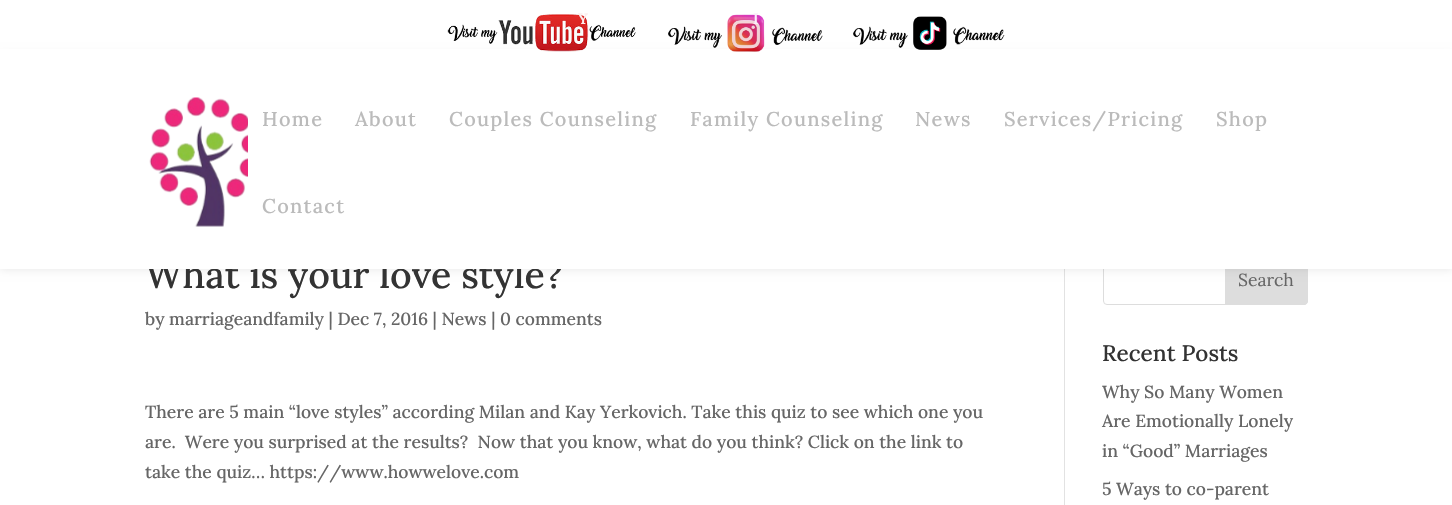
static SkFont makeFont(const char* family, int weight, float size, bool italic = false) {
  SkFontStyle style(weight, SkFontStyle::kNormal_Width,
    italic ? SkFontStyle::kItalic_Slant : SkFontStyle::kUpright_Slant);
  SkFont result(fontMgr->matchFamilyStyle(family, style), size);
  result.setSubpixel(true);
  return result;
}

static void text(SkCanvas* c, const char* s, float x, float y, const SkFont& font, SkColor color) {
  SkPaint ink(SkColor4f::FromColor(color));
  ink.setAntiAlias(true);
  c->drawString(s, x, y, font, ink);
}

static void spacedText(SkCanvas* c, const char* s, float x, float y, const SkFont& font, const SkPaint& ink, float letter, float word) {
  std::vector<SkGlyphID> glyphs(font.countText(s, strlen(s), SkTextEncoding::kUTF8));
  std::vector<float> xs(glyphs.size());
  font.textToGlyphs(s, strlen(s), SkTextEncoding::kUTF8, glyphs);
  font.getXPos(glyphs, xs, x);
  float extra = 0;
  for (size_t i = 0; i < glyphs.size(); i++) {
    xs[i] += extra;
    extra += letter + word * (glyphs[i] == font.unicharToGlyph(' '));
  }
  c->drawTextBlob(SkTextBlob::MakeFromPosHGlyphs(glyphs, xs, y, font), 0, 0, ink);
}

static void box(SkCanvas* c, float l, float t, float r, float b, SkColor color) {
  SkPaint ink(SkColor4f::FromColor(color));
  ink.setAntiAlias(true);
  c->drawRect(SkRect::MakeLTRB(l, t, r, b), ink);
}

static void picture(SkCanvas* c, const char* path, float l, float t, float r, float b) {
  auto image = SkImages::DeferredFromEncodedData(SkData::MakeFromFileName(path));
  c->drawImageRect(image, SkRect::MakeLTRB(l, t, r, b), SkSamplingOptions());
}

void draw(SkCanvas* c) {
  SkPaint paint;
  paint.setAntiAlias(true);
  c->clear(0xffffffff);
  paint.setStyle(SkPaint::kStroke_Style);
  paint.setStrokeWidth(1);
  paint.setColor(0xffdddddd);
  c->drawRoundRect(SkRect::MakeLTRB(1103.5f, 255.5f, 1307.5f, 304.5f), 3.5f, 3.5f, paint);
  paint.setStyle(SkPaint::kFill_Style);
  c->drawPath(SkPathBuilder().moveTo(1225.5f, 255.5f).lineTo(1304, 255.5f).cubicTo(1306, 255.5f, 1307.5f, 257, 1307.5f, 259).lineTo(1307.5f, 301).cubicTo(1307.5f, 303, 1306, 304.5f, 1304, 304.5f).lineTo(1225.5f, 304.5f).close().detach(), paint);
  paint.setStyle(SkPaint::kStroke_Style);
  c->drawPath(SkPathBuilder().moveTo(1225.5f, 255.5f).lineTo(1304, 255.5f).cubicTo(1306, 255.5f, 1307.5f, 257, 1307.5f, 259).lineTo(1307.5f, 301).cubicTo(1307.5f, 303, 1306, 304.5f, 1304, 304.5f).lineTo(1225.5f, 304.5f).close().detach(), paint);
  box(c, 1064, 269, 1065, 505, 0xffe2e2e2);
  paint.setStyle(SkPaint::kFill_Style);
  paint.setColor(0x1a000000);
  paint.setMaskFilter(SkMaskFilter::MakeBlur(kNormal_SkBlurStyle, 4.5f));
  c->drawRect(SkRect::MakeLTRB(0, 55, 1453, 269), paint);
  paint.setMaskFilter(nullptr);
  SkFont face1 = makeFont("Lora", 500, 37.5f);
  text(c, "What is your love style?", 145, 288, face1, 0xff333333);
  box(c, 0, 49, 1452, 269, 0xffffffff);
  picture(c, "img_01.png", 447, 14, 636, 52);
  SkFont face2 = makeFont("Lora", 600, 15);
  text(c, "Y", 578, 24, face2, 0xfffcedec);
  picture(c, "img_02.png", 668, 14, 823, 52);
  text(c, "I", 753, 24, face2, 0xfffbecf8);
  picture(c, "img_03.png", 853, 16, 1005, 50);
  picture(c, "img_04.png", 149, 97, 248, 227);
  SkFont face3 = makeFont("Lora", 500, 20);
  paint.setColor(0xffbbbbbb);
  spacedText(c, "Home", 262, 126, face3, paint, 1.25f, 0);
  spacedText(c, "About", 355, 126, face3, paint, 1.25f, 0);
  spacedText(c, "Couples Counseling", 449, 126, face3, paint, 1.25f, 0);
  spacedText(c, "Family Counseling", 690, 126, face3, paint, 1.25f, 0);
  spacedText(c, "News", 915, 126, face3, paint, 1.25f, 0);
  spacedText(c, "Services/Pricing", 1004, 126, face3, paint, 1.25f, 0);
  spacedText(c, "Shop", 1216, 126, face3, paint, 1.25f, 0);
  spacedText(c, "Contact", 262, 213, face3, paint, 1.25f, 0);
  SkFont face4 = makeFont("Lora", 500, 17.5f);
  text(c, "by marriageandfamily | Dec 7, 2016 | News | 0 comments", 145, 325, face4, 0xff666666);
  text(c, "There are 5 main “love styles” according Milan and Kay Yerkovich. Take this quiz to see which one you", 145, 418, face4, 0xff666666);
  text(c, "are.  Were you surprised at the results?  Now that you know, what do you think? Click on the link to", 145, 448, face4, 0xff666666);
  text(c, "take the quiz… https://www.howwelove.com", 145, 478, face4, 0xff666666);
  SkFont face5 = makeFont("Lora", 400, 17.5f);
  text(c, "Search", 1238, 286, face5, 0xff666666);
  SkFont face6 = makeFont("Lora", 500, 22.5f);
  text(c, "Recent Posts", 1102, 361, face6, 0xff333333);
  text(c, "Why So Many Women", 1102, 398, face4, 0xff666666);
  text(c, "Are Emotionally Lonely", 1102, 427, face4, 0xff666666);
  text(c, "in “Good” Marriages", 1102, 457, face4, 0xff666666);
  text(c, "5 Ways to co-parent", 1102, 495, face4, 0xff666666);
}
